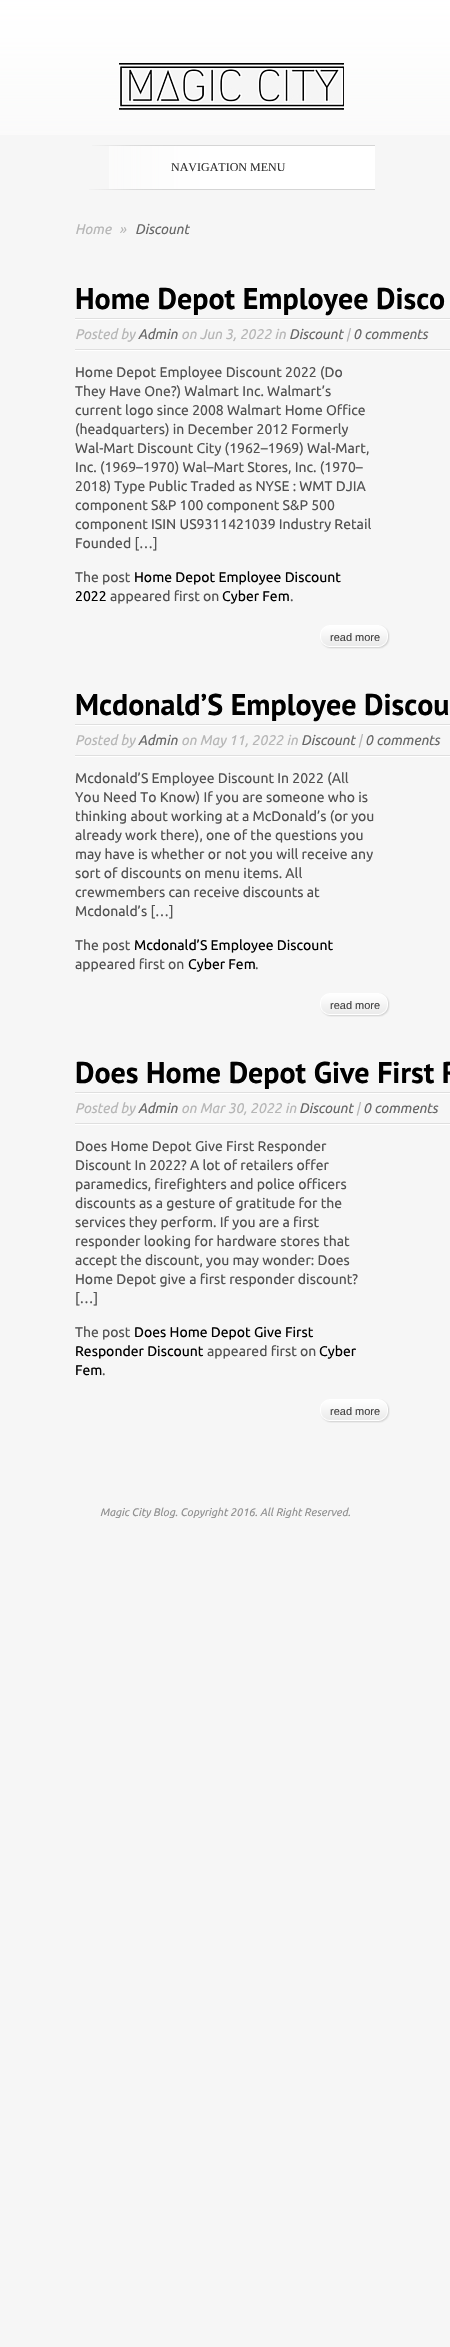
static SkFont makeFont(const char* family, int weight, float size, bool italic = false) {
  SkFontStyle style(weight, SkFontStyle::kNormal_Width,
    italic ? SkFontStyle::kItalic_Slant : SkFontStyle::kUpright_Slant);
  SkFont result(fontMgr->matchFamilyStyle(family, style), size);
  result.setSubpixel(true);
  return result;
}

static void text(SkCanvas* c, const char* s, float x, float y, const SkFont& font, SkColor color) {
  SkPaint ink(SkColor4f::FromColor(color));
  ink.setAntiAlias(true);
  c->drawString(s, x, y, font, ink);
}

static void picture(SkCanvas* c, const char* path, float l, float t, float r, float b) {
  auto image = SkImages::DeferredFromEncodedData(SkData::MakeFromFileName(path));
  c->drawImageRect(image, SkRect::MakeLTRB(l, t, r, b), SkSamplingOptions());
}

void draw(SkCanvas* c) {
  SkPaint paint;
  paint.setAntiAlias(true);
  c->clear(0xfff6f6f6);
  picture(c, "img_01.png", 0, 0, 450, 135);
  picture(c, "img_02.png", 119, 63, 344, 110);
  picture(c, "img_03.png", 109, 146, 375, 189);
  picture(c, "img_04.png", 92, 145, 375, 146);
  SkFont face1 = makeFont("Liberation Serif", 400, 12);
  text(c, "NAVIGATION MENU", 171, 171, face1, 0xff333333);
  picture(c, "img_05.png", 89, 189, 375, 190);
  SkFont face2 = makeFont("Ubuntu", 400, 14, true);
  text(c, "Home", 75, 234, face2, 0xffb6b6b6);
  text(c, "»", 119, 234, face2, 0xffb6b6b6);
  text(c, "Discount", 135, 234, face2, 0xff686868);
  SkFont face3 = makeFont("PT Sans", 700, 30);
  text(c, "Home Depot Employee Disco", 75, 309, face3, 0xff000000);
  picture(c, "img_06.png", 75, 318, 450, 320);
  text(c, "Posted by", 75, 339, face2, 0xffb6b6b6);
  text(c, "Admin", 138, 339, face2, 0xff686868);
  text(c, "on Jun 3, 2022 in", 181, 339, face2, 0xffb6b6b6);
  text(c, "Discount", 289, 339, face2, 0xff686868);
  text(c, "|", 346, 339, face2, 0xffb6b6b6);
  text(c, "0 comments", 353, 339, face2, 0xff686868);
  picture(c, "img_06.png", 75, 349, 450, 351);
  SkFont face4 = makeFont("Ubuntu", 400, 14);
  text(c, "Home Depot Employee Discount 2022 (Do", 75, 377, face4, 0xff525252);
  text(c, "They Have One?) Walmart Inc. Walmart’s", 75, 396, face4, 0xff525252);
  text(c, "current logo since 2008 Walmart Home Office", 75, 415, face4, 0xff525252);
  text(c, "(headquarters) in December 2012 Formerly", 75, 434, face4, 0xff525252);
  text(c, "Wal-Mart Discount City (1962–1969) Wal-Mart,", 75, 453, face4, 0xff525252);
  text(c, "Inc. (1969–1970) Wal–Mart Stores, Inc. (1970–", 75, 472, face4, 0xff525252);
  text(c, "2018) Type Public Traded as NYSE : WMT DJIA", 75, 491, face4, 0xff525252);
  text(c, "component S&P 100 component S&P 500", 75, 510, face4, 0xff525252);
  text(c, "component ISIN US9311421039 Industry Retail", 75, 529, face4, 0xff525252);
  text(c, "Founded […]", 75, 548, face4, 0xff525252);
  text(c, "The post", 75, 582, face4, 0xff525252);
  text(c, "Home Depot Employee Discount", 134, 582, face4, 0xff000000);
  text(c, "2022", 75, 601, face4, 0xff000000);
  text(c, "appeared first on", 110, 601, face4, 0xff525252);
  text(c, "Cyber Fem", 222, 601, face4, 0xff000000);
  text(c, ".", 290, 601, face4, 0xff525252);
  picture(c, "img_07.png", 320, 625, 375, 649);
  picture(c, "img_08.png", 375, 625, 390, 649);
  SkFont face5 = makeFont("Liberation Sans", 400, 11);
  text(c, "read more", 330, 641, face5, 0xff414040);
  text(c, "Mcdonald’S Employee Discou", 75, 715, face3, 0xff000000);
  picture(c, "img_06.png", 75, 724, 450, 726);
  text(c, "Posted by", 75, 745, face2, 0xffb6b6b6);
  text(c, "Admin", 138, 745, face2, 0xff686868);
  text(c, "on May 11, 2022 in", 181, 745, face2, 0xffb6b6b6);
  text(c, "Discount", 301, 745, face2, 0xff686868);
  text(c, "|", 358, 745, face2, 0xffb6b6b6);
  text(c, "0 comments", 365, 745, face2, 0xff686868);
  picture(c, "img_06.png", 75, 755, 450, 757);
  text(c, "Mcdonald’S Employee Discount In 2022 (All", 75, 783, face4, 0xff525252);
  text(c, "You Need To Know) If you are someone who is", 75, 802, face4, 0xff525252);
  text(c, "thinking about working at a McDonald’s (or you", 75, 821, face4, 0xff525252);
  text(c, "already work there), one of the questions you", 75, 840, face4, 0xff525252);
  text(c, "may have is whether or not you will receive any", 75, 859, face4, 0xff525252);
  text(c, "sort of discounts on menu items. All", 75, 878, face4, 0xff525252);
  text(c, "crewmembers can receive discounts at", 75, 897, face4, 0xff525252);
  text(c, "Mcdonald’s […]", 75, 916, face4, 0xff525252);
  text(c, "The post", 75, 950, face4, 0xff525252);
  text(c, "Mcdonald’S Employee Discount", 134, 950, face4, 0xff000000);
  text(c, "appeared first on", 75, 969, face4, 0xff525252);
  text(c, "Cyber Fem", 188, 969, face4, 0xff000000);
  text(c, ".", 255, 969, face4, 0xff525252);
  picture(c, "img_07.png", 320, 993, 375, 1017);
  picture(c, "img_08.png", 375, 993, 390, 1017);
  text(c, "read more", 330, 1009, face5, 0xff414040);
  text(c, "Does Home Depot Give First R", 75, 1083, face3, 0xff000000);
  picture(c, "img_06.png", 75, 1092, 450, 1094);
  text(c, "Posted by", 75, 1113, face2, 0xffb6b6b6);
  text(c, "Admin", 138, 1113, face2, 0xff686868);
  text(c, "on Mar 30, 2022 in", 181, 1113, face2, 0xffb6b6b6);
  text(c, "Discount", 299, 1113, face2, 0xff686868);
  text(c, "|", 356, 1113, face2, 0xffb6b6b6);
  text(c, "0 comments", 363, 1113, face2, 0xff686868);
  picture(c, "img_06.png", 75, 1123, 450, 1125);
  text(c, "Does Home Depot Give First Responder", 75, 1151, face4, 0xff525252);
  text(c, "Discount In 2022? A lot of retailers offer", 75, 1170, face4, 0xff525252);
  text(c, "paramedics, firefighters and police officers", 75, 1189, face4, 0xff525252);
  text(c, "discounts as a gesture of gratitude for the", 75, 1208, face4, 0xff525252);
  text(c, "services they perform. If you are a first", 75, 1227, face4, 0xff525252);
  text(c, "responder looking for hardware stores that", 75, 1246, face4, 0xff525252);
  text(c, "accept the discount, you may wonder: Does", 75, 1265, face4, 0xff525252);
  text(c, "Home Depot give a first responder discount?", 75, 1284, face4, 0xff525252);
  text(c, "[…]", 75, 1303, face4, 0xff525252);
  text(c, "The post", 75, 1337, face4, 0xff525252);
  text(c, "Does Home Depot Give First", 134, 1337, face4, 0xff000000);
  text(c, "Responder Discount", 75, 1356, face4, 0xff000000);
  text(c, "appeared first on", 207, 1356, face4, 0xff525252);
  text(c, "Cyber", 319, 1356, face4, 0xff000000);
  text(c, "Fem", 75, 1375, face4, 0xff000000);
  text(c, ".", 102, 1375, face4, 0xff525252);
  picture(c, "img_07.png", 320, 1399, 375, 1423);
  picture(c, "img_08.png", 375, 1399, 390, 1423);
  text(c, "read more", 330, 1415, face5, 0xff414040);
  SkFont face6 = makeFont("Ubuntu", 400, 11, true);
  text(c, "Magic City Blog. Copyright 2016. All Right Reserved.", 100, 1516, face6, 0xff919191);
}
